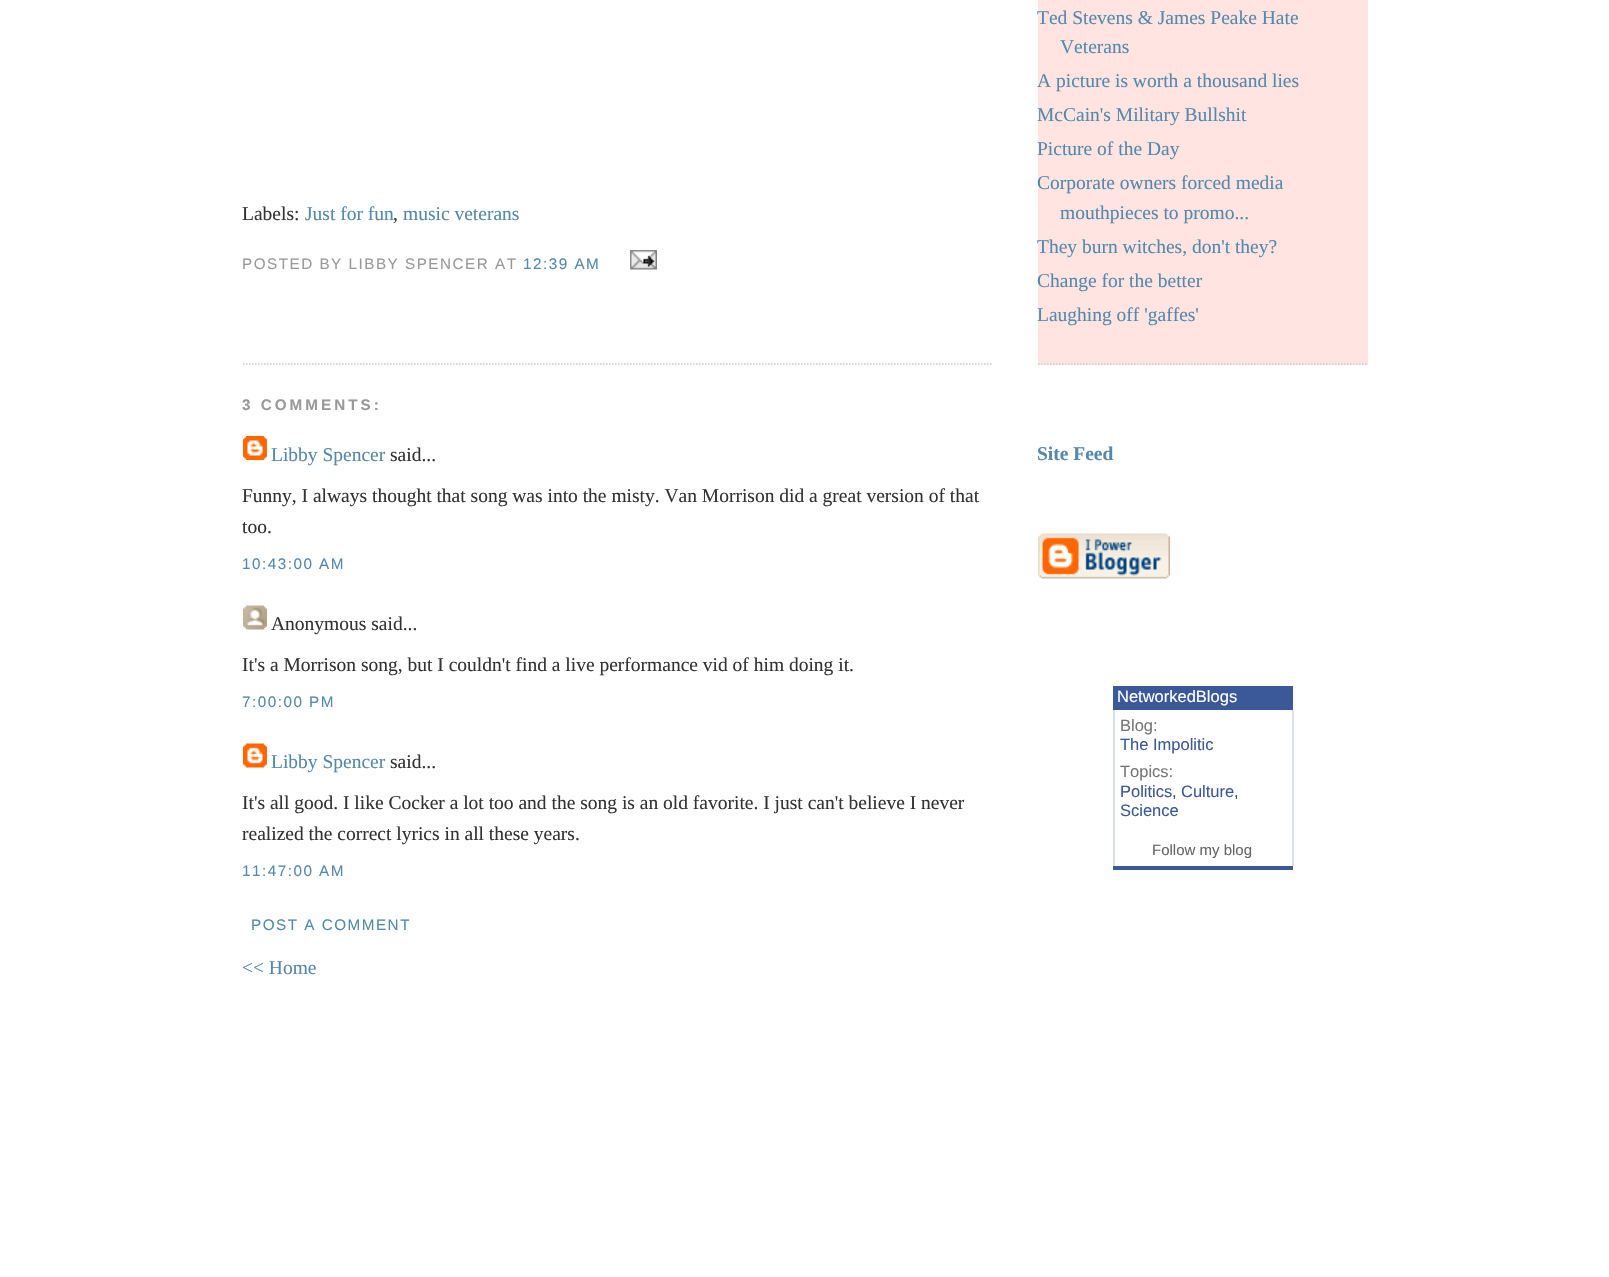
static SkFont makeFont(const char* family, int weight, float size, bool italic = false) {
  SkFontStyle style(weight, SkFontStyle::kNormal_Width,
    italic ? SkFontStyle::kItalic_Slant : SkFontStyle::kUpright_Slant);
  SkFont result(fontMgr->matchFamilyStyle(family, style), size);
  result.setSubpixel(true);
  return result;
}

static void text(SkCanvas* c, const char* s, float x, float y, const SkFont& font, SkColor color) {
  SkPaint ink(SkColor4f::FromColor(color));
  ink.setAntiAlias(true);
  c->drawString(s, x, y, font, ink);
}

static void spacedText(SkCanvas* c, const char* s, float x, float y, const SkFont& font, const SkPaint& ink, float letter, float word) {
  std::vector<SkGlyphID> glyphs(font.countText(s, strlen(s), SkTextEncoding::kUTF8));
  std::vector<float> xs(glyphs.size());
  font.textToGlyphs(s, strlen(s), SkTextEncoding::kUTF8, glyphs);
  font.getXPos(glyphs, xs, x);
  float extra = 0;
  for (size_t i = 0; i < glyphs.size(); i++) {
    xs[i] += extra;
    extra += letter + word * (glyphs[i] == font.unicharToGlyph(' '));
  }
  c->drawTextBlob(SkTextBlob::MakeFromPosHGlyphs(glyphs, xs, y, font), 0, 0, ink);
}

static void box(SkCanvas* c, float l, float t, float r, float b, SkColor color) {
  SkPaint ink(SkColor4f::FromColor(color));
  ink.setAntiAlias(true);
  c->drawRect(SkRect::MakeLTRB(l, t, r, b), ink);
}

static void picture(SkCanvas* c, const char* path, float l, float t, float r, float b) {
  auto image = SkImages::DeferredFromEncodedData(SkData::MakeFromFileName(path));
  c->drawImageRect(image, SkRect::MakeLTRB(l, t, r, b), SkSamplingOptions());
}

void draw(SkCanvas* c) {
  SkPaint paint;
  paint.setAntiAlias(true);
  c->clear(0xffffffff);
  paint.setStyle(SkPaint::kStroke_Style);
  paint.setStrokeWidth(1.5f);
  paint.setColor(0xffcccccc);
  paint.setPathEffect(SkDashPathEffect::Make({{1.5f, 1.5f}}, 0));
  c->drawPath(SkPathBuilder().moveTo(243, 364).lineTo(993, 364).detach(), paint);
  paint.setPathEffect(nullptr);
  SkFont face1 = makeFont("Liberation Serif", 400, 19.5f);
  text(c, "Labels:", 242, 220, face1, 0xff333333);
  text(c, "Just for fun", 305, 220, face1, 0xff5588aa);
  text(c, ",", 393, 220, face1, 0xff333333);
  text(c, "music veterans", 403, 220, face1, 0xff5588aa);
  SkFont face2 = makeFont("Liberation Sans", 400, 15.25f);
  paint.setStyle(SkPaint::kFill_Style);
  paint.setColor(0xff999999);
  spacedText(c, "POSTED BY LIBBY SPENCER AT", 242, 269, face2, paint, 1.5f, 0);
  paint.setColor(0xff5588aa);
  spacedText(c, "12:39 AM", 523, 269, face2, paint, 1.5f, 0);
  picture(c, "img_01.png", 630, 250, 657, 270);
  SkFont face3 = makeFont("Liberation Sans", 700, 15.25f);
  paint.setColor(0xff999999);
  spacedText(c, "3 COMMENTS:", 242, 410, face3, paint, 3, 0);
  picture(c, "img_02.png", 243, 436, 267, 460);
  text(c, "Libby Spencer", 271, 461, face1, 0xff5588aa);
  text(c, "said...", 390, 461, face1, 0xff333333);
  text(c, "Funny, I always thought that song was into the misty. Van Morrison did a great version of that", 242, 502, face1, 0xff333333);
  text(c, "too.", 242, 533, face1, 0xff333333);
  paint.setColor(0xff5588aa);
  spacedText(c, "10:43:00 AM", 242, 569, face2, paint, 1.5f, 0);
  picture(c, "img_03.png", 243, 605, 267, 630);
  text(c, "Anonymous said...", 271, 630, face1, 0xff333333);
  text(c, "It's a Morrison song, but I couldn't find a live performance vid of him doing it.", 242, 671, face1, 0xff333333);
  spacedText(c, "7:00:00 PM", 242, 707, face2, paint, 1.5f, 0);
  picture(c, "img_04.png", 243, 743, 267, 768);
  text(c, "Libby Spencer", 271, 768, face1, 0xff5588aa);
  text(c, "said...", 390, 768, face1, 0xff333333);
  text(c, "It's all good. I like Cocker a lot too and the song is an old favorite. I just can't believe I never", 242, 809, face1, 0xff333333);
  text(c, "realized the correct lyrics in all these years.", 242, 840, face1, 0xff333333);
  spacedText(c, "11:47:00 AM", 242, 876, face2, paint, 1.5f, 0);
  spacedText(c, "POST A COMMENT", 251, 930, face2, paint, 1.5f, 0);
  text(c, "<< Home", 242, 974, face1, 0xff5588aa);
  box(c, 1038, 0, 1368, 365, 0xffffe4e1);
  paint.setStyle(SkPaint::kStroke_Style);
  paint.setColor(0xffcccccc);
  paint.setPathEffect(SkDashPathEffect::Make({{1.5f, 1.5f}}, 0));
  c->drawPath(SkPathBuilder().moveTo(1038, 364).lineTo(1368, 364).detach(), paint);
  paint.setPathEffect(nullptr);
  text(c, "Ted Stevens & James Peake Hate", 1037, 24, face1, 0xff5588aa);
  text(c, "Veterans", 1060, 53, face1, 0xff5588aa);
  text(c, "A picture is worth a thousand lies", 1037, 87, face1, 0xff5588aa);
  text(c, "McCain's Military Bullshit", 1037, 121, face1, 0xff5588aa);
  text(c, "Picture of the Day", 1037, 155, face1, 0xff5588aa);
  text(c, "Corporate owners forced media", 1037, 189, face1, 0xff5588aa);
  text(c, "mouthpieces to promo...", 1060, 219, face1, 0xff5588aa);
  text(c, "They burn witches, don't they?", 1037, 253, face1, 0xff5588aa);
  text(c, "Change for the better", 1037, 287, face1, 0xff5588aa);
  text(c, "Laughing off 'gaffes'", 1037, 321, face1, 0xff5588aa);
  SkFont face4 = makeFont("Liberation Serif", 700, 19.5f);
  text(c, "Site Feed", 1037, 460, face4, 0xff5588aa);
  picture(c, "img_05.png", 1038, 533, 1170, 579);
  box(c, 1113, 686, 1293, 870, 0xff3b5998);
  SkFont face5 = makeFont("Liberation Sans", 400, 16.5f);
  text(c, "NetworkedBlogs", 1117, 702, face5, 0xffffffff);
  box(c, 1115, 710, 1292, 866, 0xffffffff);
  box(c, 1292, 710, 1294, 866, 0xffd8dfea);
  box(c, 1113, 710, 1115, 866, 0xffd8dfea);
  text(c, "Blog:", 1120, 731, face5, 0xff777777);
  text(c, "The Impolitic", 1120, 750, face5, 0xff3b5998);
  text(c, "Topics:", 1120, 777, face5, 0xff777777);
  text(c, "Politics", 1120, 797, face5, 0xff3b5998);
  text(c, ",", 1172, 797, face5, 0xff444444);
  text(c, "Culture", 1181, 797, face5, 0xff3b5998);
  text(c, ",", 1234, 797, face5, 0xff444444);
  text(c, "Science", 1120, 816, face5, 0xff3b5998);
  SkFont face6 = makeFont("Liberation Sans", 400, 15);
  text(c, "Follow my blog", 1152, 855, face6, 0xff666666);
}
